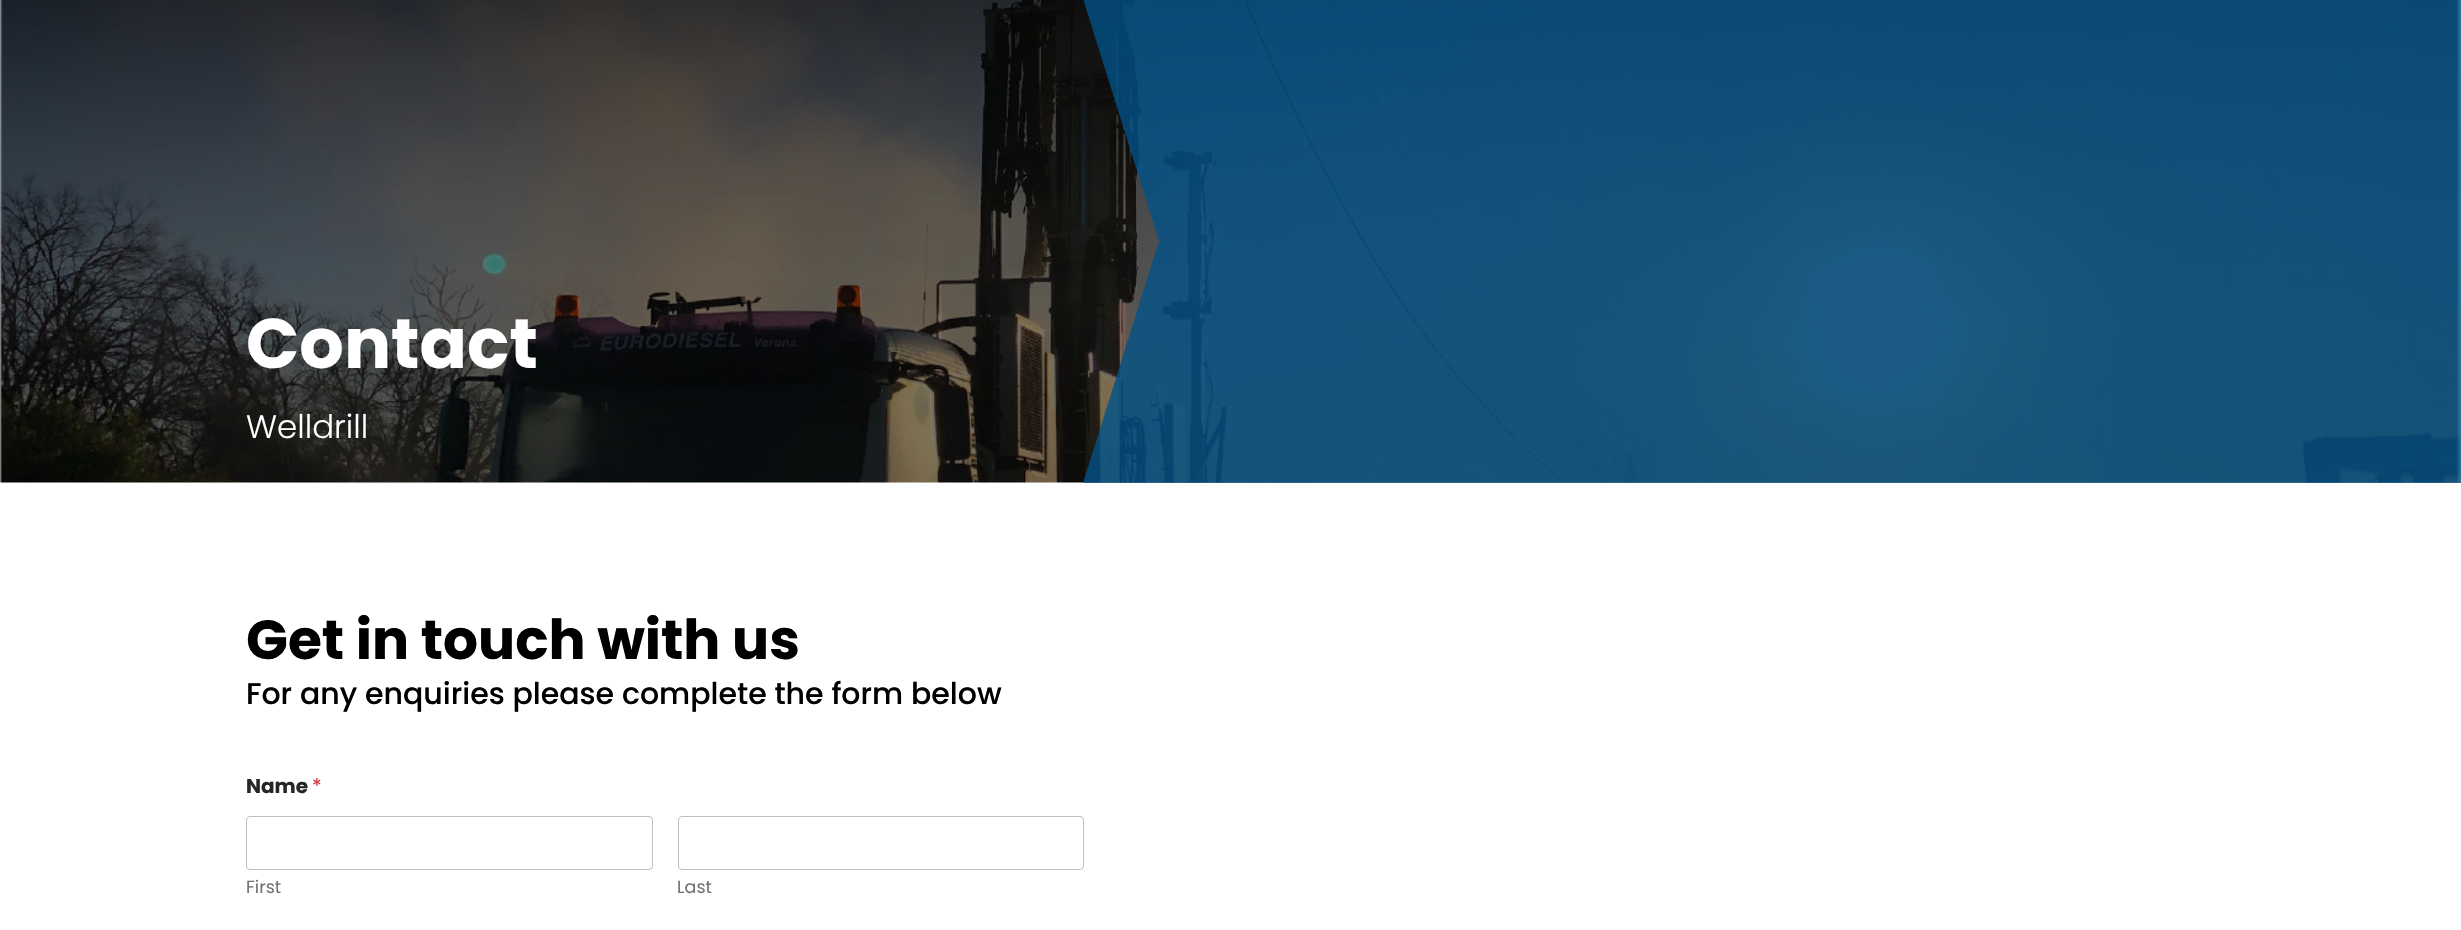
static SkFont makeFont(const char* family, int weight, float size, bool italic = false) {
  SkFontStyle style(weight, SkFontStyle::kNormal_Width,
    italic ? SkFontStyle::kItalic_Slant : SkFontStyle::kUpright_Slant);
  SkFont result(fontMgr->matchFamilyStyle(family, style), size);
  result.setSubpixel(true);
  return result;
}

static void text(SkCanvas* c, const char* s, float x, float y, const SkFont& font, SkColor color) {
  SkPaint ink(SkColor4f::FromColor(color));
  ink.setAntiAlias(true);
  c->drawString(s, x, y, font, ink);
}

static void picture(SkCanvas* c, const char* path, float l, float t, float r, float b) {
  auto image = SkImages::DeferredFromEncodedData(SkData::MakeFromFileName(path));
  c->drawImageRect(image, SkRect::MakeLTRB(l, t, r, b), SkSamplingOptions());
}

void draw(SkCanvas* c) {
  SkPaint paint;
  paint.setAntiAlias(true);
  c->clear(0xffffffff);
  picture(c, "img_01.png", 0, 0, 2461, 483);
  SkFont face1 = makeFont("Poppins", 700, 70);
  text(c, "Contact", 246, 368, face1, 0xffffffff);
  SkFont face2 = makeFont("Poppins", 300, 32.5f);
  text(c, "Welldrill", 246, 438, face2, 0xffffffff);
  c->save();
  c->clipRect(SkRect::MakeLTRB(0, 0, 2461, 483));
  paint.setColor(0xc9005188);
  c->drawPath(SkPathBuilder().moveTo(870, -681).lineTo(2461, -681).lineTo(2461, 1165).lineTo(869, 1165).lineTo(1159, 241).close().detach(), paint);
  c->restore();
  SkFont face3 = makeFont("Poppins", 700, 55);
  text(c, "Get in touch with us", 246, 659, face3, 0xff000000);
  SkFont face4 = makeFont("Poppins", 500, 30);
  text(c, "For any enquiries please complete the form below", 246, 704, face4, 0xff000000);
  SkFont face5 = makeFont("Poppins", 700, 20);
  text(c, "Name", 246, 793, face5, 0xff262626);
  SkFont face6 = makeFont("Poppins", 400, 20);
  text(c, "*", 312, 793, face6, 0xffd63637);
  paint.setStyle(SkPaint::kStroke_Style);
  paint.setStrokeWidth(1);
  paint.setColor(0xffbfbfbf);
  c->drawRoundRect(SkRect::MakeLTRB(246.5f, 816.5f, 652.5f, 869.5f), 3.5f, 3.5f, paint);
  SkFont face7 = makeFont("Poppins", 400, 17.5f);
  text(c, "First", 246, 893, face7, 0xff737373);
  c->drawRoundRect(SkRect::MakeLTRB(678.5f, 816.5f, 1083.5f, 869.5f), 3.5f, 3.5f, paint);
  text(c, "Last", 677, 893, face7, 0xff737373);
}
